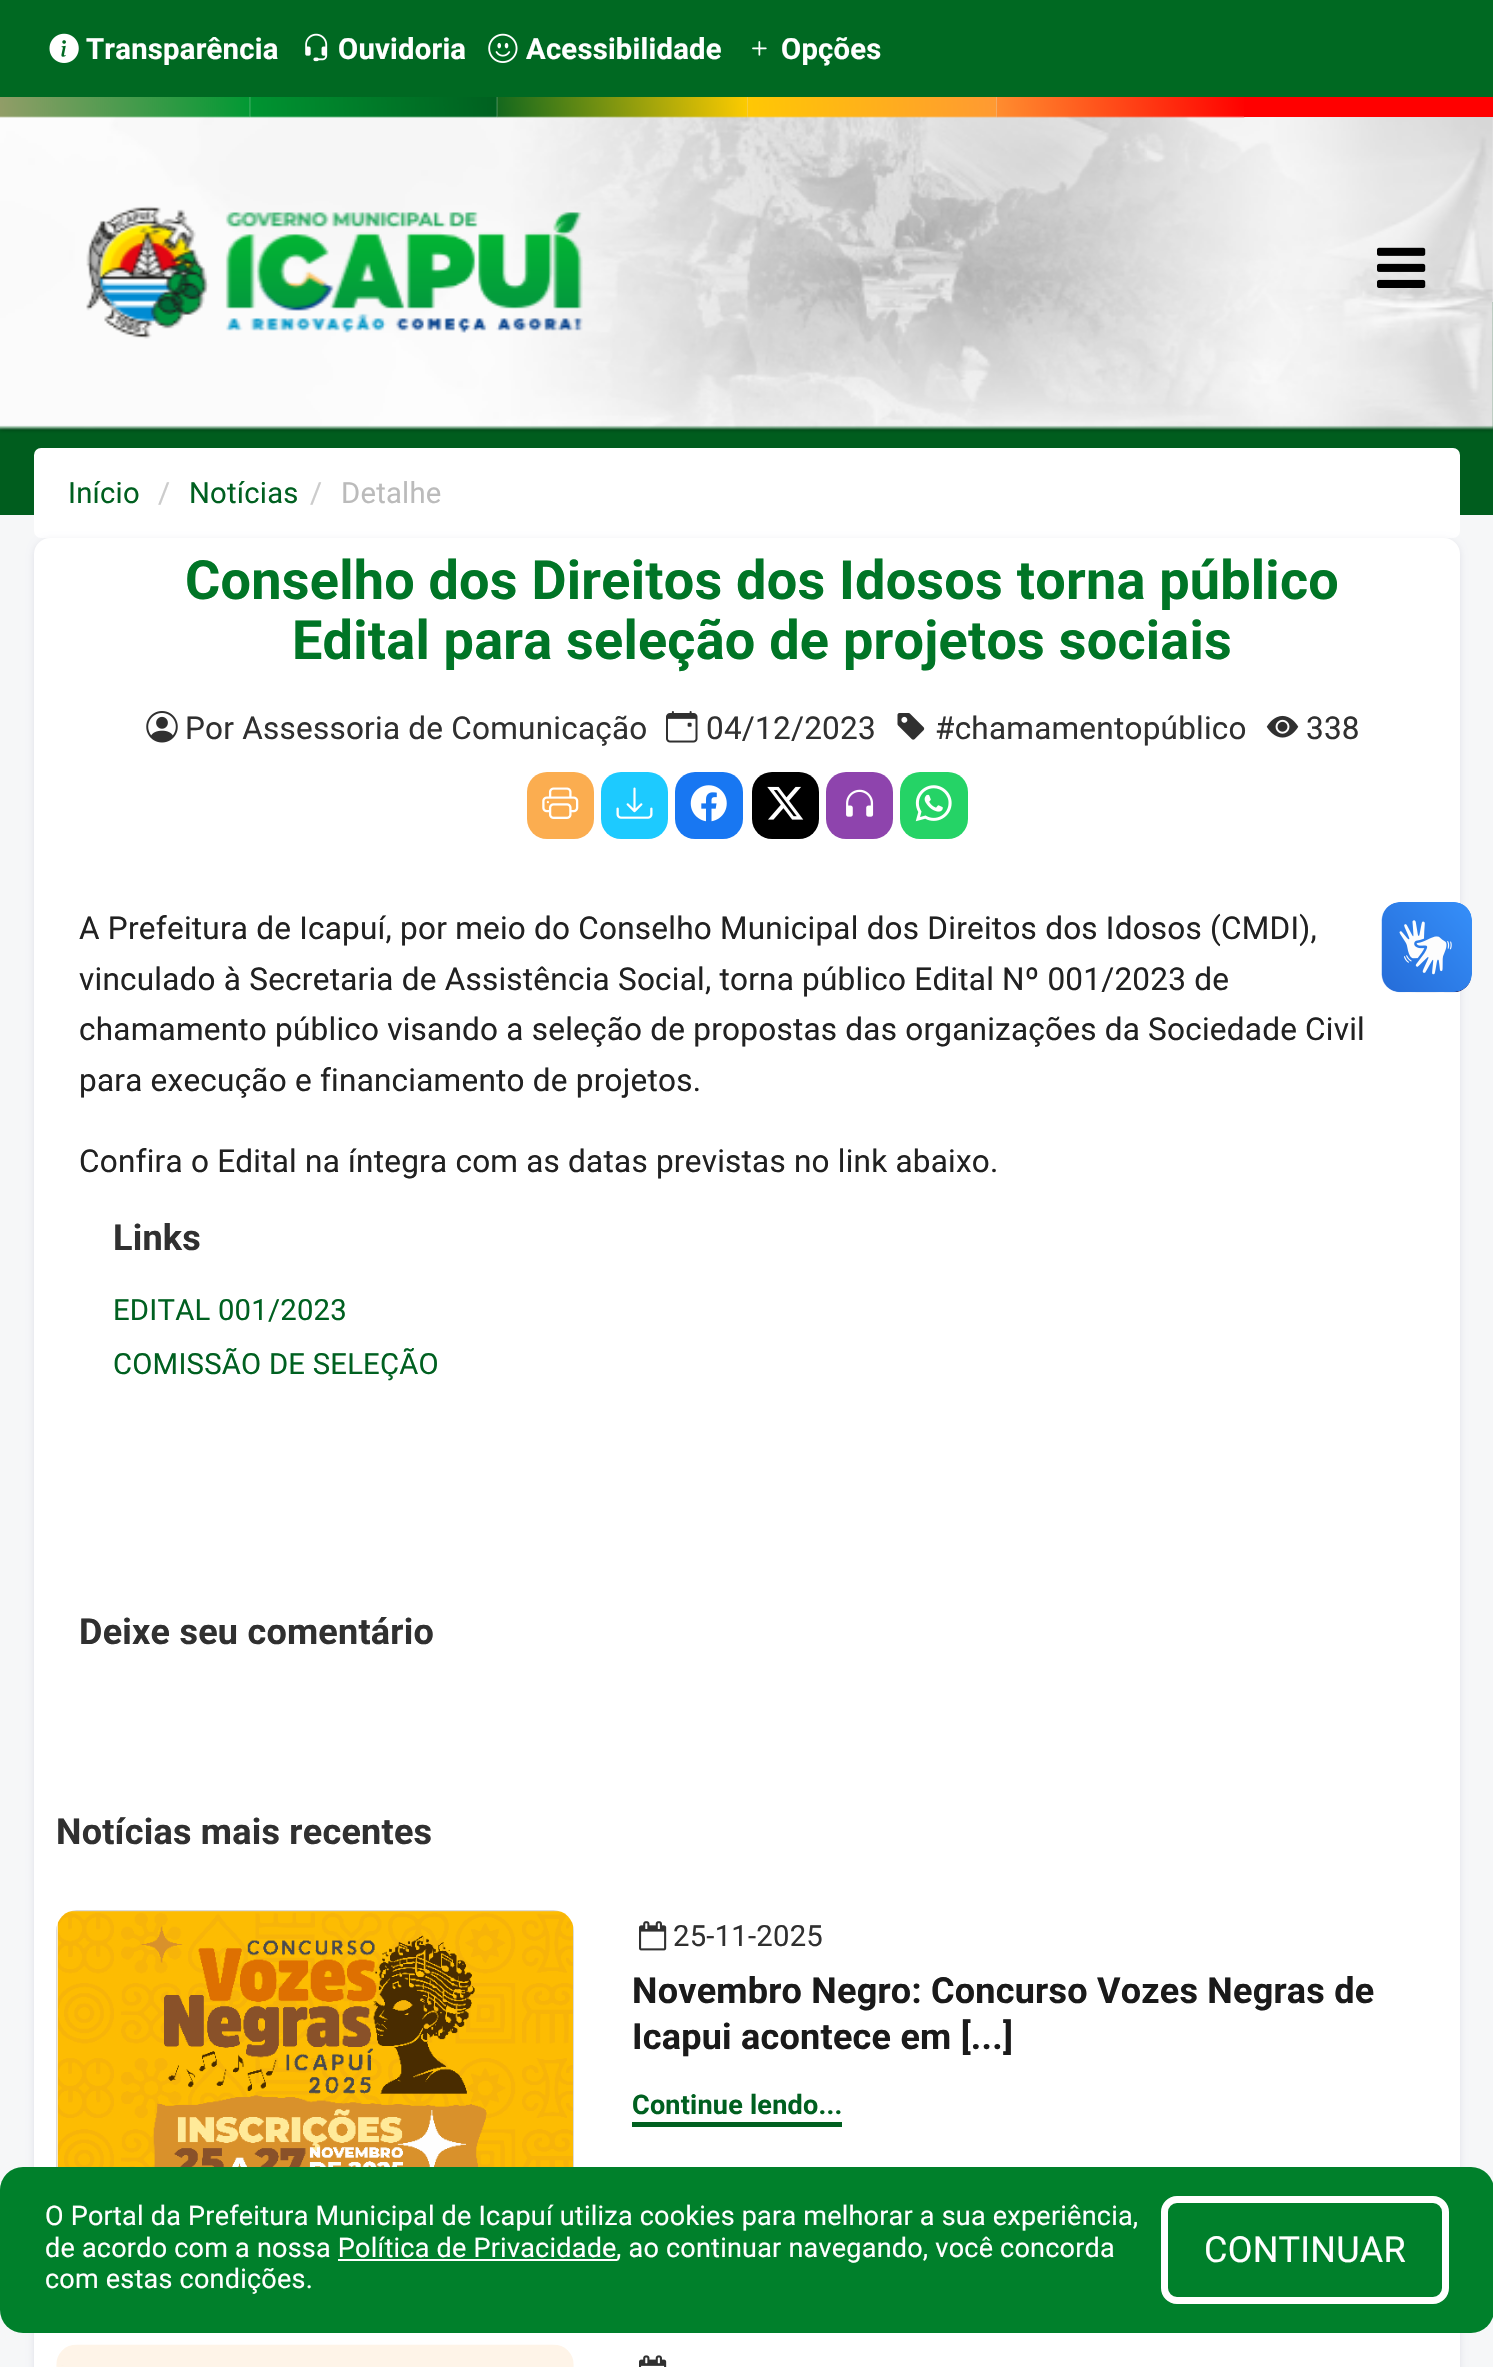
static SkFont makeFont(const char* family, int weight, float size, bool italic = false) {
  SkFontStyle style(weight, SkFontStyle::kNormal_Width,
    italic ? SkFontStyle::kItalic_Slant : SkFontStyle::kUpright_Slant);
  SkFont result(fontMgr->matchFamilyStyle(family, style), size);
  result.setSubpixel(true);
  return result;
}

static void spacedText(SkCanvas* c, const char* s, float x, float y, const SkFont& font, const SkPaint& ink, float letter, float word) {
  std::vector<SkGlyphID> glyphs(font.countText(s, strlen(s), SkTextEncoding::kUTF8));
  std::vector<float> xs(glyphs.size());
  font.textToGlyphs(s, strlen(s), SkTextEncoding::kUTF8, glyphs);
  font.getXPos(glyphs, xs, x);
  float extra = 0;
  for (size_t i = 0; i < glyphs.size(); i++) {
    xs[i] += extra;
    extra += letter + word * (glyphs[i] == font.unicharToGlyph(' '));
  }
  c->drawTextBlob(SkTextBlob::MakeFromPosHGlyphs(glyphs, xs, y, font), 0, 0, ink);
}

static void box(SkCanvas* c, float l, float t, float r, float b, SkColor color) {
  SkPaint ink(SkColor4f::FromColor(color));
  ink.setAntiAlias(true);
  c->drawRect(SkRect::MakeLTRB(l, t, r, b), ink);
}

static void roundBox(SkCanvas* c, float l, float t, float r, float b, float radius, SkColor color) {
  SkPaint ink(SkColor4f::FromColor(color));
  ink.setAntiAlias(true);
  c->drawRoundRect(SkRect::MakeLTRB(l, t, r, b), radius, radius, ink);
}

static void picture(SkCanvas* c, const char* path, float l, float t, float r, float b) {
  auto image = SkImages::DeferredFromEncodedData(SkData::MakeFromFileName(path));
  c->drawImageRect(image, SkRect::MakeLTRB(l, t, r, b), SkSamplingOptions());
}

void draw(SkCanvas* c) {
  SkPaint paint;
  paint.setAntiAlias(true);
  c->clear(0xfff6f7f8);
  box(c, 0, 302, 1493, 515, 0xff005d1e);
  c->save();
  c->clipPath(SkPathBuilder(SkPathFillType::kEvenOdd).moveTo(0, 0).lineTo(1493, 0).lineTo(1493, 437).lineTo(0, 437).close().moveTo(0, 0).lineTo(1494, 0).lineTo(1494, 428).lineTo(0, 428).close().detach(), true);
  paint.setColor(0x4d000000);
  paint.setMaskFilter(SkMaskFilter::MakeBlur(kNormal_SkBlurStyle, 2));
  c->drawRect(SkRect::MakeLTRB(0, 2, 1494, 430), paint);
  paint.setMaskFilter(nullptr);
  c->restore();
  picture(c, "img_01.png", 0, 97, 1493, 430);
  box(c, 0, 0, 1493, 97, 0xff006922);
  picture(c, "img_02.png", 49, 33, 79, 63);
  SkFont face1 = makeFont("Roboto", 700, 29.25f);
  paint.setColor(0xffffffff);
  spacedText(c, "Transparência", 86, 59, face1, paint, 0.23f, 0);
  picture(c, "img_03.png", 305, 33, 328, 62);
  spacedText(c, "Ouvidoria", 338, 59, face1, paint, 0.23f, 0);
  picture(c, "img_04.png", 488, 33, 518, 63);
  spacedText(c, "Acessibilidade", 526, 59, face1, paint, 0.23f, 0);
  picture(c, "img_05.png", 752, 41, 767, 56);
  spacedText(c, "Opções", 781, 59, face1, paint, 0.23f, 0);
  picture(c, "img_06.png", 0, 97, 250, 118);
  picture(c, "img_07.png", 249, 97, 498, 118);
  picture(c, "img_08.png", 497, 97, 747, 118);
  picture(c, "img_09.png", 746, 97, 998, 118);
  picture(c, "img_10.png", 996, 97, 1245, 118);
  box(c, 1244, 97, 1493, 117, 0xffff0000);
  picture(c, "img_11.png", 86, 206, 583, 339);
  picture(c, "img_12.png", 1377, 247, 1426, 288);
  roundBox(c, 34, 448, 1460, 538, 7, 0xffffffff);
  SkFont face2 = makeFont("Roboto", 400, 29.25f);
  paint.setColor(0xff006020);
  spacedText(c, "Início", 68, 503, face2, paint, 0.23f, 0);
  paint.setColor(0xffcccccc);
  spacedText(c, "/", 158, 503, face2, paint, 0.23f, 0);
  paint.setColor(0xff006020);
  spacedText(c, "Notícias", 189, 503, face2, paint, 0.23f, 0);
  paint.setColor(0xffcccccc);
  spacedText(c, "/", 310, 503, face2, paint, 0.23f, 0);
  paint.setColor(0xffbbbbbb);
  spacedText(c, "Detalhe", 341, 503, face2, paint, 0.23f, 0);
  paint.setColor(0x17030047);
  paint.setMaskFilter(SkMaskFilter::MakeBlur(kNormal_SkBlurStyle, 3.5f));
  c->drawRoundRect(SkRect::MakeLTRB(34, 540, 1460, 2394), 16, 16, paint);
  paint.setMaskFilter(nullptr);
  roundBox(c, 34, 538, 1460, 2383, 16, 0xffffffff);
  SkFont face3 = makeFont("Roboto", 700, 54);
  paint.setColor(0xff007526);
  spacedText(c, "Conselho dos Direitos dos Idosos torna público", 185, 599, face3, paint, 0.23f, 0);
  spacedText(c, "Edital para seleção de projetos sociais", 292, 659, face3, paint, 0.23f, 0);
  picture(c, "img_13.png", 146, 711, 178, 743);
  SkFont face4 = makeFont("Roboto", 400, 31.5f);
  paint.setColor(0xff303030);
  spacedText(c, "Por Assessoria de Comunicação", 185, 739, face4, paint, 0.23f, 0);
  picture(c, "img_14.png", 666, 711, 698, 743);
  spacedText(c, "04/12/2023", 706, 739, face4, paint, 0.23f, 0);
  picture(c, "img_15.png", 897, 713, 925, 740);
  spacedText(c, "#chamamentopúblico", 935, 739, face4, paint, 0.23f, 0);
  picture(c, "img_16.png", 1266, 715, 1299, 738);
  spacedText(c, "338", 1306, 739, face4, paint, 0.23f, 0);
  roundBox(c, 527, 772, 594, 839, 20, 0xfffbad50);
  picture(c, "img_17.png", 542, 787, 579, 819);
  roundBox(c, 601, 772, 668, 839, 20, 0xff1dcaff);
  picture(c, "img_18.png", 616, 787, 653, 819);
  roundBox(c, 675, 772, 743, 839, 20, 0xff1877f2);
  picture(c, "img_19.png", 690, 785, 727, 822);
  roundBox(c, 752, 772, 819, 839, 20, 0xff000000);
  picture(c, "img_20.png", 767, 786, 804, 820);
  roundBox(c, 826, 772, 893, 839, 20, 0xff8e44ad);
  picture(c, "img_21.png", 846, 789, 874, 817);
  roundBox(c, 900, 772, 968, 839, 20, 0xff25d366);
  picture(c, "img_22.png", 915, 785, 952, 822);
  paint.setColor(0xff212121);
  spacedText(c, "A Prefeitura de Icapuí, por meio do Conselho Municipal dos Direitos dos Idosos (CMDI),", 79, 939, face4, paint, 0.23f, 0);
  spacedText(c, "vinculado à Secretaria de Assistência Social, torna público Edital Nº 001/2023 de", 79, 990, face4, paint, 0.23f, 0);
  spacedText(c, "chamamento público visando a seleção de propostas das organizações da Sociedade Civil", 79, 1040, face4, paint, 0.23f, 0);
  spacedText(c, "para execução e financiamento de projetos.", 79, 1091, face4, paint, 0.23f, 0);
  spacedText(c, "Confira o Edital na íntegra com as datas previstas no link abaixo.", 79, 1172, face4, paint, 0.23f, 0);
  SkFont face5 = makeFont("Roboto", 700, 36);
  paint.setColor(0xff303030);
  spacedText(c, "Links", 113, 1250, face5, paint, 0.23f, 0);
  paint.setColor(0xff006020);
  spacedText(c, "EDITAL 001/2023", 113, 1320, face2, paint, 0.23f, 0);
  spacedText(c, "COMISSÃO DE SELEÇÃO", 113, 1374, face2, paint, 0.23f, 0);
  paint.setColor(0xff303030);
  spacedText(c, "Deixe seu comentário", 79, 1644, face5, paint, 0.23f, 0);
  spacedText(c, "Notícias mais recentes", 56, 1844, face5, paint, 0.23f, 0);
  picture(c, "img_23.png", 56, 1910, 574, 2167);
  picture(c, "img_24.png", 639, 1921, 667, 1951);
  spacedText(c, "25-11-2025", 673, 1946, face2, paint, 0.23f, 0);
  paint.setColor(0xff1a1a1a);
  spacedText(c, "Novembro Negro: Concurso Vozes Negras de", 632, 2003, face5, paint, 0.23f, 0);
  spacedText(c, "Icapui acontece em [...]", 632, 2049, face5, paint, 0.23f, 0);
  SkFont face6 = makeFont("Roboto", 700, 27);
  paint.setColor(0xff006020);
  spacedText(c, "Continue lendo...", 632, 2114, face6, paint, 0.23f, 0);
  box(c, 632, 2122, 842, 2127, 0xff006020);
  picture(c, "img_25.png", 56, 2344, 574, 2367);
  picture(c, "img_26.png", 639, 2355, 667, 2367);
  picture(c, "img_27.png", 1381, 902, 1472, 993);
  picture(c, "img_28.png", 1382, 902, 1472, 992);
  roundBox(c, 0, 2167, 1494, 2333, 23, 0xff00802b);
  SkFont face7 = makeFont("Roboto", 400, 27);
  paint.setColor(0xffffffff);
  spacedText(c, "O Portal da Prefeitura Municipal de Icapuí utiliza cookies para melhorar a sua experiência,", 45, 2225, face7, paint, 0.23f, 0);
  spacedText(c, "de acordo com a nossa Política de Privacidade", 45, 2257, face7, paint, 0.23f, 0);
  box(c, 338, 2259, 617, 2261, 0xffffffff);
  spacedText(c, ", ao continuar navegando, você concorda", 616, 2257, face7, paint, 0.23f, 0);
  spacedText(c, "com estas condições.", 45, 2288, face7, paint, 0.23f, 0);
  paint.setStyle(SkPaint::kStroke_Style);
  paint.setStrokeWidth(7);
  c->drawRoundRect(SkRect::MakeLTRB(1164.5f, 2199.5f, 1445.5f, 2300.5f), 12.5f, 12.5f, paint);
  SkFont face8 = makeFont("Roboto", 400, 36);
  paint.setStyle(SkPaint::kFill_Style);
  spacedText(c, "CONTINUAR", 1204, 2262, face8, paint, 0.23f, 0);
}
